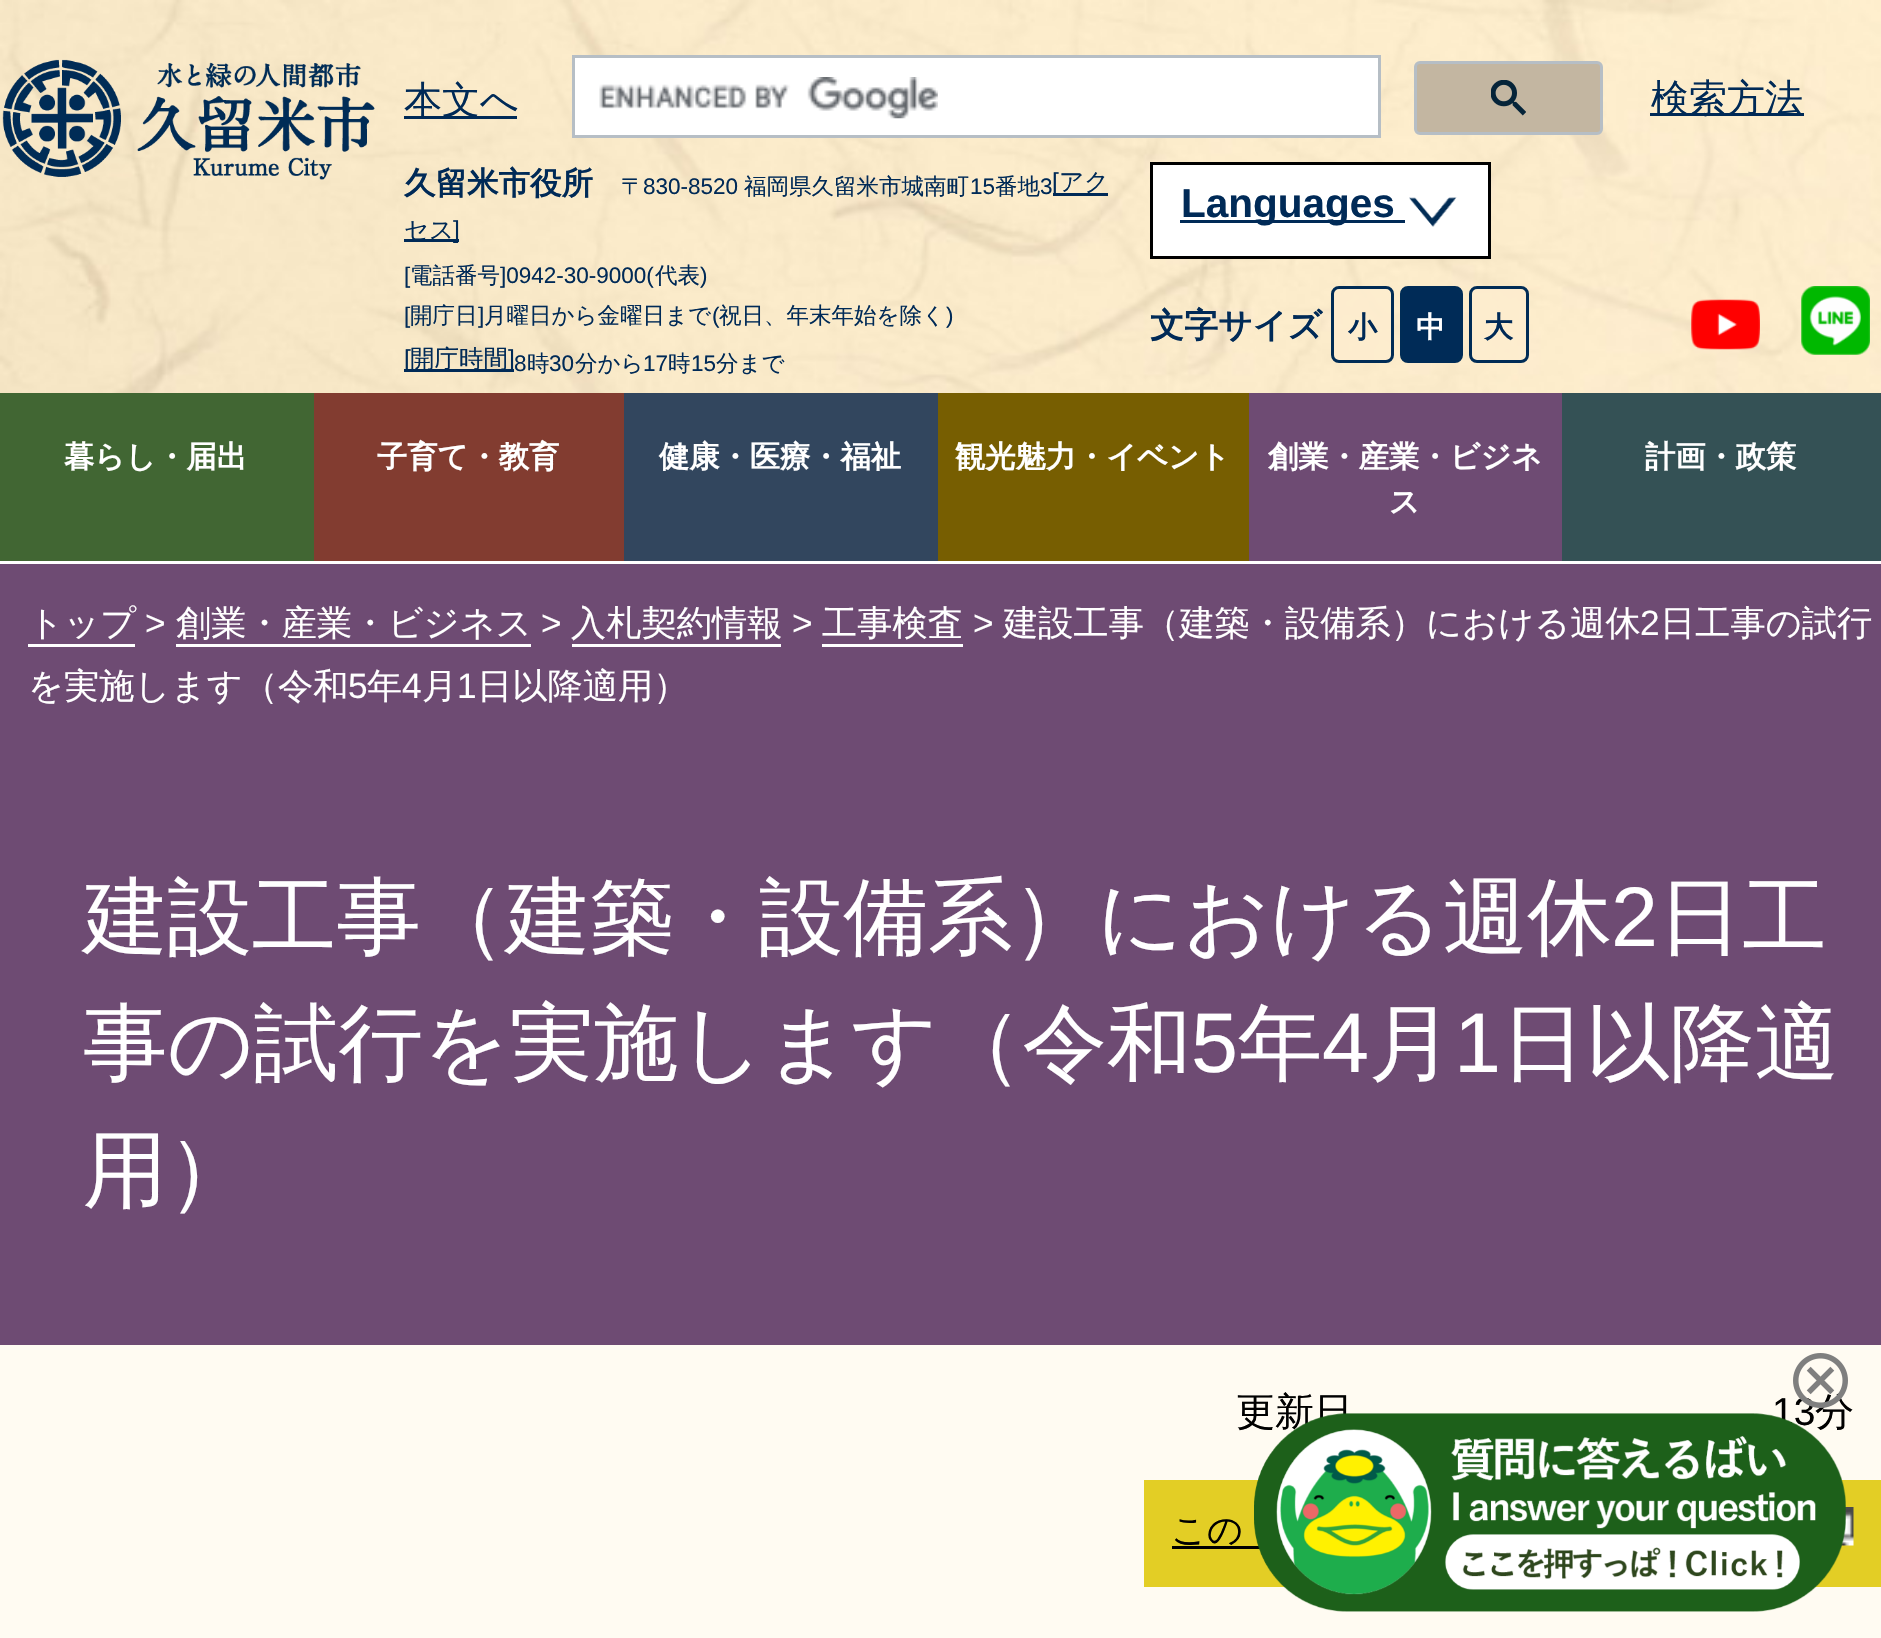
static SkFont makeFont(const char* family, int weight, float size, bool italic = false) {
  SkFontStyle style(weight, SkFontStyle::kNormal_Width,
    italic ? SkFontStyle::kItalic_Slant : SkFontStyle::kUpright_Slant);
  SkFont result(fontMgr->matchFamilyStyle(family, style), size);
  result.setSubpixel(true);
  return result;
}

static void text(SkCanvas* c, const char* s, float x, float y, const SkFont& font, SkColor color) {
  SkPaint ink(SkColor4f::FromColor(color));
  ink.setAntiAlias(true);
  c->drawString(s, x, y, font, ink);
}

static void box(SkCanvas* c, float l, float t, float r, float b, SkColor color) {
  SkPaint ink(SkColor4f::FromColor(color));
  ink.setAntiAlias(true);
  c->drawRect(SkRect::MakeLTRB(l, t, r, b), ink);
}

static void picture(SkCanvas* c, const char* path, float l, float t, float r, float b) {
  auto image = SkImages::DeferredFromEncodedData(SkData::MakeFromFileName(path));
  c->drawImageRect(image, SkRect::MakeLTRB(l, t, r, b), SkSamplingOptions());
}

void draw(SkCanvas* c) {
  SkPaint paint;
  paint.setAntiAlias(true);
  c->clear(0xfffffbf2);
  picture(c, "img_01.png", 0, 0, 1881, 393);
  picture(c, "img_02.png", 2, 59, 375, 180);
  box(c, 404, 116, 517, 119, 0xff002a57);
  SkFont face1 = makeFont("WenQuanYi Zen Hei", 500, 38);
  text(c, "本文へ", 404, 113, face1, 0xff002a57);
  paint.setColor(0xffffffff);
  c->drawRect(SkRect::MakeLTRB(573.5f, 56.5f, 1379.5f, 136.5f), paint);
  paint.setStyle(SkPaint::kStroke_Style);
  paint.setStrokeWidth(3);
  paint.setColor(0xffb6bec5);
  c->drawRect(SkRect::MakeLTRB(573.5f, 56.5f, 1379.5f, 136.5f), paint);
  picture(c, "img_03.png", 599, 77, 938, 119);
  paint.setStyle(SkPaint::kFill_Style);
  paint.setColor(0xffc3b6a1);
  c->drawRoundRect(SkRect::MakeLTRB(1415.5f, 62.5f, 1601.5f, 133.5f), 4.5f, 4.5f, paint);
  paint.setStyle(SkPaint::kStroke_Style);
  paint.setColor(0xffb6bec5);
  c->drawRoundRect(SkRect::MakeLTRB(1415.5f, 62.5f, 1601.5f, 133.5f), 4.5f, 4.5f, paint);
  picture(c, "img_04.png", 1491, 80, 1526, 116);
  box(c, 1650, 113, 1804, 116, 0xff002a57);
  text(c, "検索方法", 1651, 111, face1, 0xff002a57);
  SkFont face2 = makeFont("WenQuanYi Zen Hei", 700, 31.5f);
  text(c, "久留米市役所", 404, 194, face2, 0xff002a57);
  SkFont face3 = makeFont("WenQuanYi Zen Hei", 500, 22.5f);
  text(c, "〒", 621, 194, face3, 0xff002a57);
  SkFont face4 = makeFont("Liberation Sans", 400, 22.5f);
  text(c, "830-8520", 643, 194, face4, 0xff002a57);
  text(c, "福岡県久留米市城南町", 744, 194, face3, 0xff002a57);
  text(c, "15", 970, 194, face4, 0xff002a57);
  text(c, "番地", 995, 194, face3, 0xff002a57);
  text(c, "3", 1040, 194, face4, 0xff002a57);
  box(c, 1053, 193, 1108, 196, 0xff002a57);
  SkFont face5 = makeFont("Liberation Sans", 400, 24.5f);
  text(c, "[", 1052, 190, face5, 0xff002a57);
  SkFont face6 = makeFont("WenQuanYi Zen Hei", 500, 24.5f);
  text(c, "アク", 1059, 190, face6, 0xff002a57);
  box(c, 404, 239, 459, 242, 0xff002a57);
  text(c, "セス", 404, 238, face6, 0xff002a57);
  text(c, "]", 453, 238, face5, 0xff002a57);
  text(c, "[", 404, 283, face4, 0xff002a57);
  text(c, "電話番号", 410, 283, face3, 0xff002a57);
  text(c, "]0942-30-9000(", 500, 283, face4, 0xff002a57);
  text(c, "代表", 655, 283, face3, 0xff002a57);
  text(c, ")", 700, 283, face4, 0xff002a57);
  text(c, "[", 404, 323, face4, 0xff002a57);
  text(c, "開庁日", 410, 323, face3, 0xff002a57);
  text(c, "]", 478, 323, face4, 0xff002a57);
  text(c, "月曜日から金曜日まで", 484, 323, face3, 0xff002a57);
  text(c, "(", 712, 323, face4, 0xff002a57);
  text(c, "祝日、年末年始を除く", 719, 323, face3, 0xff002a57);
  text(c, ")", 946, 323, face4, 0xff002a57);
  box(c, 404, 369, 514, 372, 0xff002a57);
  text(c, "[", 404, 367, face5, 0xff002a57);
  text(c, "開庁時間", 410, 367, face6, 0xff002a57);
  text(c, "]", 508, 367, face5, 0xff002a57);
  text(c, "8", 514, 371, face4, 0xff002a57);
  text(c, "時", 527, 371, face3, 0xff002a57);
  text(c, "30", 549, 371, face4, 0xff002a57);
  text(c, "分から", 575, 371, face3, 0xff002a57);
  text(c, "17", 643, 371, face4, 0xff002a57);
  text(c, "時", 668, 371, face3, 0xff002a57);
  text(c, "15", 691, 371, face4, 0xff002a57);
  text(c, "分まで", 716, 371, face3, 0xff002a57);
  paint.setStyle(SkPaint::kFill_Style);
  paint.setColor(0xffffffff);
  c->drawRect(SkRect::MakeLTRB(1151.5f, 163.5f, 1489.5f, 257.5f), paint);
  paint.setStyle(SkPaint::kStroke_Style);
  paint.setColor(0xff000000);
  c->drawRect(SkRect::MakeLTRB(1151.5f, 163.5f, 1489.5f, 257.5f), paint);
  box(c, 1180, 220, 1405, 223, 0xff002a57);
  SkFont face7 = makeFont("Liberation Sans", 700, 40.5f);
  text(c, "Languages", 1181, 217, face7, 0xff002a57);
  picture(c, "img_05.png", 1409, 197, 1457, 227);
  SkFont face8 = makeFont("WenQuanYi Zen Hei", 700, 34);
  text(c, "文字サイズ", 1150, 337, face8, 0xff002a57);
  paint.setStyle(SkPaint::kFill_Style);
  paint.setColor(0xe6fdecce);
  c->drawRoundRect(SkRect::MakeLTRB(1332.5f, 287.5f, 1392.5f, 361.5f), 6.5f, 6.5f, paint);
  paint.setStyle(SkPaint::kStroke_Style);
  paint.setColor(0xff002c56);
  c->drawRoundRect(SkRect::MakeLTRB(1332.5f, 287.5f, 1392.5f, 361.5f), 6.5f, 6.5f, paint);
  SkFont face9 = makeFont("WenQuanYi Zen Hei", 700, 29);
  text(c, "小", 1348, 337, face9, 0xff002a57);
  paint.setStyle(SkPaint::kFill_Style);
  paint.setColor(0xff002b57);
  c->drawRoundRect(SkRect::MakeLTRB(1401.5f, 287.5f, 1461.5f, 361.5f), 6.5f, 6.5f, paint);
  paint.setStyle(SkPaint::kStroke_Style);
  paint.setColor(0xff002c56);
  c->drawRoundRect(SkRect::MakeLTRB(1401.5f, 287.5f, 1461.5f, 361.5f), 6.5f, 6.5f, paint);
  text(c, "中", 1416, 337, face9, 0xffffffff);
  paint.setStyle(SkPaint::kFill_Style);
  paint.setColor(0xe6fdecce);
  c->drawRoundRect(SkRect::MakeLTRB(1470.5f, 287.5f, 1527.5f, 361.5f), 6.5f, 6.5f, paint);
  paint.setStyle(SkPaint::kStroke_Style);
  paint.setColor(0xff002c56);
  c->drawRoundRect(SkRect::MakeLTRB(1470.5f, 287.5f, 1527.5f, 361.5f), 6.5f, 6.5f, paint);
  text(c, "大", 1484, 337, face9, 0xff002a57);
  picture(c, "img_06.png", 1691, 299, 1760, 350);
  picture(c, "img_07.png", 1801, 286, 1870, 355);
  box(c, 0, 393, 314, 561, 0xff416633);
  box(c, 0, 561, 1881, 564, 0xffffffff);
  SkFont face10 = makeFont("WenQuanYi Zen Hei", 700, 30.25f);
  text(c, "暮らし・届出", 64, 467, face10, 0xffffffff);
  box(c, 314, 393, 624, 561, 0xff823c30);
  text(c, "子育て・教育", 377, 467, face10, 0xffffffff);
  box(c, 624, 393, 938, 561, 0xff32465e);
  text(c, "健康・医療・福祉", 659, 467, face10, 0xffffffff);
  box(c, 938, 393, 1249, 561, 0xff775e01);
  text(c, "観光魅力・イベント", 955, 467, face10, 0xffffffff);
  box(c, 1249, 393, 1562, 561, 0xff6e4b73);
  text(c, "創業・産業・ビジネ", 1268, 467, face10, 0xffffffff);
  text(c, "ス", 1389, 512, face10, 0xffffffff);
  box(c, 1562, 393, 1881, 561, 0xff345155);
  text(c, "計画・政策", 1645, 467, face10, 0xffffffff);
  box(c, 0, 564, 1881, 1345, 0xff6e4b73);
  SkFont face11 = makeFont("WenQuanYi Zen Hei", 500, 35.25f);
  text(c, "トップ", 28, 635, face11, 0xffffffff);
  box(c, 28, 644, 135, 647, 0xffffffff);
  SkFont face12 = makeFont("Liberation Sans", 400, 35.25f);
  text(c, ">", 145, 635, face12, 0xffffffff);
  text(c, "創業・産業・ビジネス", 176, 635, face11, 0xffffffff);
  box(c, 176, 644, 531, 647, 0xffffffff);
  text(c, ">", 541, 635, face12, 0xffffffff);
  text(c, "入札契約情報", 571, 635, face11, 0xffffffff);
  box(c, 572, 644, 781, 647, 0xffffffff);
  text(c, ">", 792, 635, face12, 0xffffffff);
  text(c, "工事検査", 822, 635, face11, 0xffffffff);
  box(c, 822, 644, 963, 647, 0xffffffff);
  text(c, ">", 973, 635, face12, 0xffffffff);
  text(c, "建設工事（建築・設備系）における週休", 1003, 635, face11, 0xffffffff);
  text(c, "2", 1640, 635, face12, 0xffffffff);
  text(c, "日工事の試行", 1660, 635, face11, 0xffffffff);
  text(c, "を実施します（令和", 28, 698, face11, 0xffffffff);
  text(c, "5", 348, 698, face12, 0xffffffff);
  text(c, "年", 367, 698, face11, 0xffffffff);
  text(c, "4", 402, 698, face12, 0xffffffff);
  text(c, "月", 422, 698, face11, 0xffffffff);
  text(c, "1", 457, 698, face12, 0xffffffff);
  text(c, "日以降適用）", 477, 698, face11, 0xffffffff);
  SkFont face13 = makeFont("WenQuanYi Zen Hei", 500, 84.5f);
  text(c, "建設工事（建築・設備系）における週休", 83, 946, face13, 0xffffffff);
  SkFont face14 = makeFont("Liberation Sans", 400, 84.5f);
  text(c, "2", 1611, 946, face14, 0xffffffff);
  text(c, "日工", 1658, 946, face13, 0xffffffff);
  text(c, "事の試行を実施します（令和", 83, 1072, face13, 0xffffffff);
  text(c, "5", 1191, 1072, face14, 0xffffffff);
  text(c, "年", 1238, 1072, face13, 0xffffffff);
  text(c, "4", 1322, 1072, face14, 0xffffffff);
  text(c, "月", 1369, 1072, face13, 0xffffffff);
  text(c, "1", 1454, 1072, face14, 0xffffffff);
  text(c, "日以降適", 1501, 1072, face13, 0xffffffff);
  text(c, "用）", 83, 1199, face13, 0xffffffff);
  SkFont face15 = makeFont("WenQuanYi Zen Hei", 500, 39);
  text(c, "更新日", 1236, 1425, face15, 0xff000000);
  SkFont face16 = makeFont("Liberation Sans", 400, 39);
  text(c, "13", 1772, 1425, face16, 0xff000000);
  text(c, "分", 1815, 1425, face15, 0xff000000);
  box(c, 1144, 1480, 1881, 1587, 0xffe3ce25);
  text(c, "この", 1171, 1542, face11, 0xff000000);
  box(c, 1172, 1546, 1260, 1549, 0xff000000);
  picture(c, "img_08.png", 1841, 1507, 1854, 1546);
  picture(c, "img_09.png", 1793, 1353, 1848, 1408);
  picture(c, "img_10.png", 1254, 1413, 1846, 1612);
}
